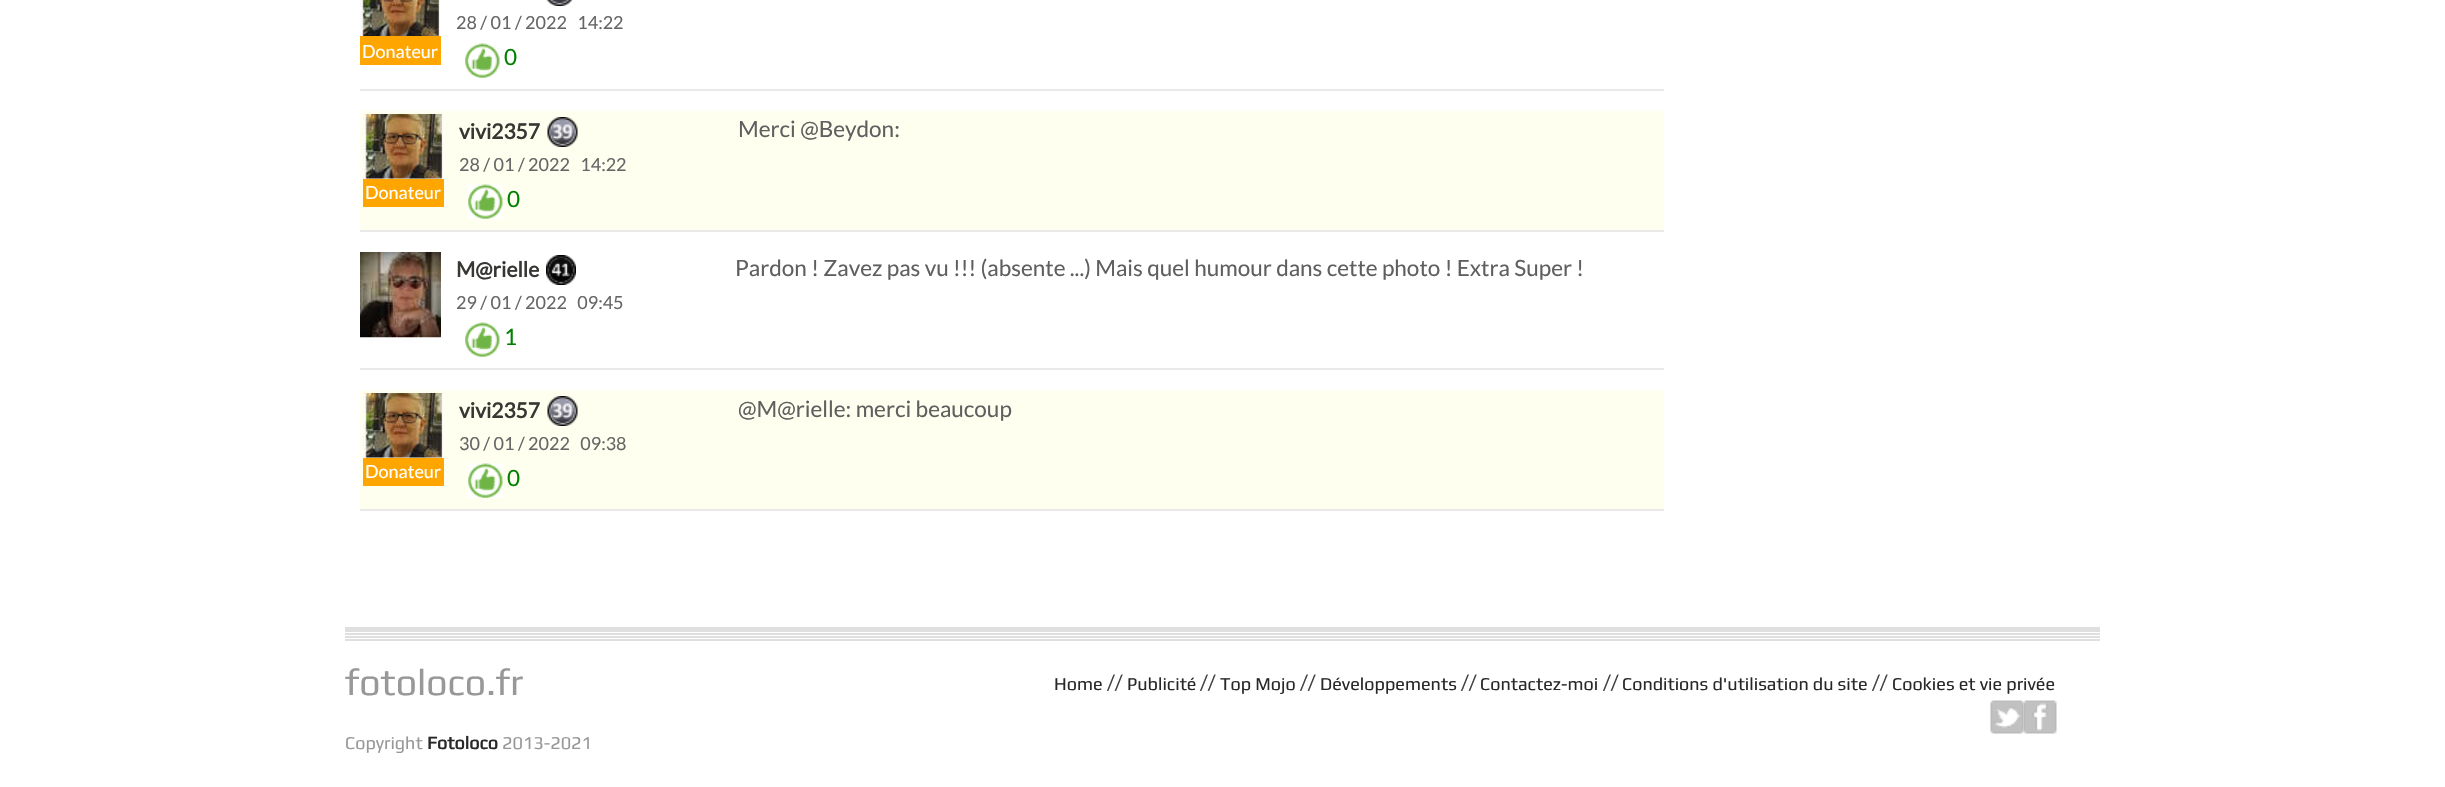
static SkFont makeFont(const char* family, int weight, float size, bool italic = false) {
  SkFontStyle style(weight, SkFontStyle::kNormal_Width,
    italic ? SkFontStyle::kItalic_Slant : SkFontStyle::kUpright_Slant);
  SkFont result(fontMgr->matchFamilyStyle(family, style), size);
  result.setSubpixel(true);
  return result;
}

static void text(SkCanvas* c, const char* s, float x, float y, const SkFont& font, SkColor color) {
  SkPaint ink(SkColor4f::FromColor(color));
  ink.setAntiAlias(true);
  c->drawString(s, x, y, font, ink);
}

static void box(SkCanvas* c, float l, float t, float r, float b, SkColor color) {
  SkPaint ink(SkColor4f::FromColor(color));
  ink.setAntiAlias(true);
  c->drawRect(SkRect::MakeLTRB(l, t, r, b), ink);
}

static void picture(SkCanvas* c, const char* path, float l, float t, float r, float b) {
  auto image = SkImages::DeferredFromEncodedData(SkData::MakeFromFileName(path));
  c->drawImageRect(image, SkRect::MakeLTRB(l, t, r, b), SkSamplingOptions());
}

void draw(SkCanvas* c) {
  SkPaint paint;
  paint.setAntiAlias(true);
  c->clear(0xffffffff);
  box(c, 360, 89, 1664, 91, 0xffe9e9e9);
  picture(c, "img_01.png", 360, 0, 440, 36);
  box(c, 360, 36, 441, 65, 0xffffa500);
  SkFont face1 = makeFont("Lato", 400, 18);
  text(c, "Donateur", 362, 58, face1, 0xffffffff);
  picture(c, "img_02.png", 546, 0, 573, 6);
  text(c, "28 / 01 / 2022   14:22", 456, 29, face1, 0xff666666);
  picture(c, "img_03.png", 465, 43, 500, 78);
  SkFont face2 = makeFont("Lato", 400, 22.5f);
  text(c, "0", 504, 65, face2, 0xff008000);
  box(c, 360, 111, 1664, 230, 0xfffffff0);
  box(c, 360, 230, 1664, 232, 0xffe9e9e9);
  picture(c, "img_04.png", 363, 114, 444, 179);
  box(c, 363, 179, 444, 207, 0xffffa500);
  text(c, "Donateur", 365, 199, face1, 0xffffffff);
  SkFont face3 = makeFont("Lato", 700, 21);
  text(c, "vivi2357", 459, 139, face3, 0xff373734);
  picture(c, "img_05.png", 547, 117, 578, 147);
  text(c, "28 / 01 / 2022   14:22", 459, 171, face1, 0xff666666);
  picture(c, "img_06.png", 468, 184, 503, 219);
  text(c, "0", 507, 207, face2, 0xff008000);
  text(c, "Merci @Beydon:", 738, 137, face2, 0xff5f5f5f);
  box(c, 360, 368, 1664, 370, 0xffe9e9e9);
  picture(c, "img_07.png", 360, 252, 441, 338);
  text(c, "M@rielle", 456, 277, face3, 0xff373734);
  picture(c, "img_08.png", 546, 255, 576, 285);
  text(c, "29 / 01 / 2022   09:45", 456, 309, face1, 0xff666666);
  picture(c, "img_03.png", 465, 322, 500, 357);
  text(c, "1", 504, 345, face2, 0xff008000);
  text(c, "Pardon ! Zavez pas vu !!! (absente ...) Mais quel humour dans cette photo ! Extra Super !", 735, 276, face2, 0xff5f5f5f);
  box(c, 360, 390, 1664, 509, 0xfffffff0);
  box(c, 360, 509, 1664, 511, 0xffe9e9e9);
  picture(c, "img_04.png", 363, 393, 444, 458);
  box(c, 363, 458, 444, 486, 0xffffa500);
  text(c, "Donateur", 365, 478, face1, 0xffffffff);
  text(c, "vivi2357", 459, 418, face3, 0xff373734);
  picture(c, "img_05.png", 547, 396, 578, 426);
  text(c, "30 / 01 / 2022   09:38", 459, 450, face1, 0xff666666);
  picture(c, "img_06.png", 468, 463, 503, 498);
  text(c, "0", 507, 486, face2, 0xff008000);
  text(c, "@M@rielle: merci beaucoup", 738, 417, face2, 0xff5f5f5f);
  box(c, 345, 627, 2100, 632, 0xffe0dfdf);
  box(c, 345, 633, 2100, 635, 0xffe0dfdf);
  box(c, 345, 636, 2100, 638, 0xffe0dfdf);
  box(c, 345, 639, 2100, 641, 0xffe0dfdf);
  SkFont face4 = makeFont("Play", 400, 37.5f);
  text(c, "fotoloco.fr", 345, 695, face4, 0xff999898);
  SkFont face5 = makeFont("Play", 400, 18);
  text(c, "Copyright", 345, 749, face5, 0xff999898);
  SkFont face6 = makeFont("Play", 700, 18);
  text(c, "Fotoloco", 427, 749, face6, 0xff282828);
  text(c, "2013-2021", 502, 749, face5, 0xff999898);
  text(c, "Home", 1054, 690, face5, 0xff282828);
  SkFont face7 = makeFont("Lato", 400, 21);
  text(c, "//", 1107, 690, face7, 0xff424242);
  text(c, "Publicité", 1127, 690, face5, 0xff282828);
  text(c, "//", 1200, 690, face7, 0xff424242);
  text(c, "Top Mojo", 1220, 690, face5, 0xff282828);
  text(c, "//", 1300, 690, face7, 0xff424242);
  text(c, "Développements", 1320, 690, face5, 0xff282828);
  text(c, "//", 1461, 690, face7, 0xff424242);
  text(c, "Contactez-moi", 1480, 690, face5, 0xff282828);
  text(c, "//", 1603, 690, face7, 0xff424242);
  text(c, "Conditions d'utilisation du site", 1622, 690, face5, 0xff282828);
  text(c, "//", 1872, 690, face7, 0xff424242);
  text(c, "Cookies et vie privée", 1892, 690, face5, 0xff282828);
  picture(c, "img_10.png", 2023, 700, 2057, 734);
  picture(c, "img_09.png", 1990, 700, 2024, 734);
}
